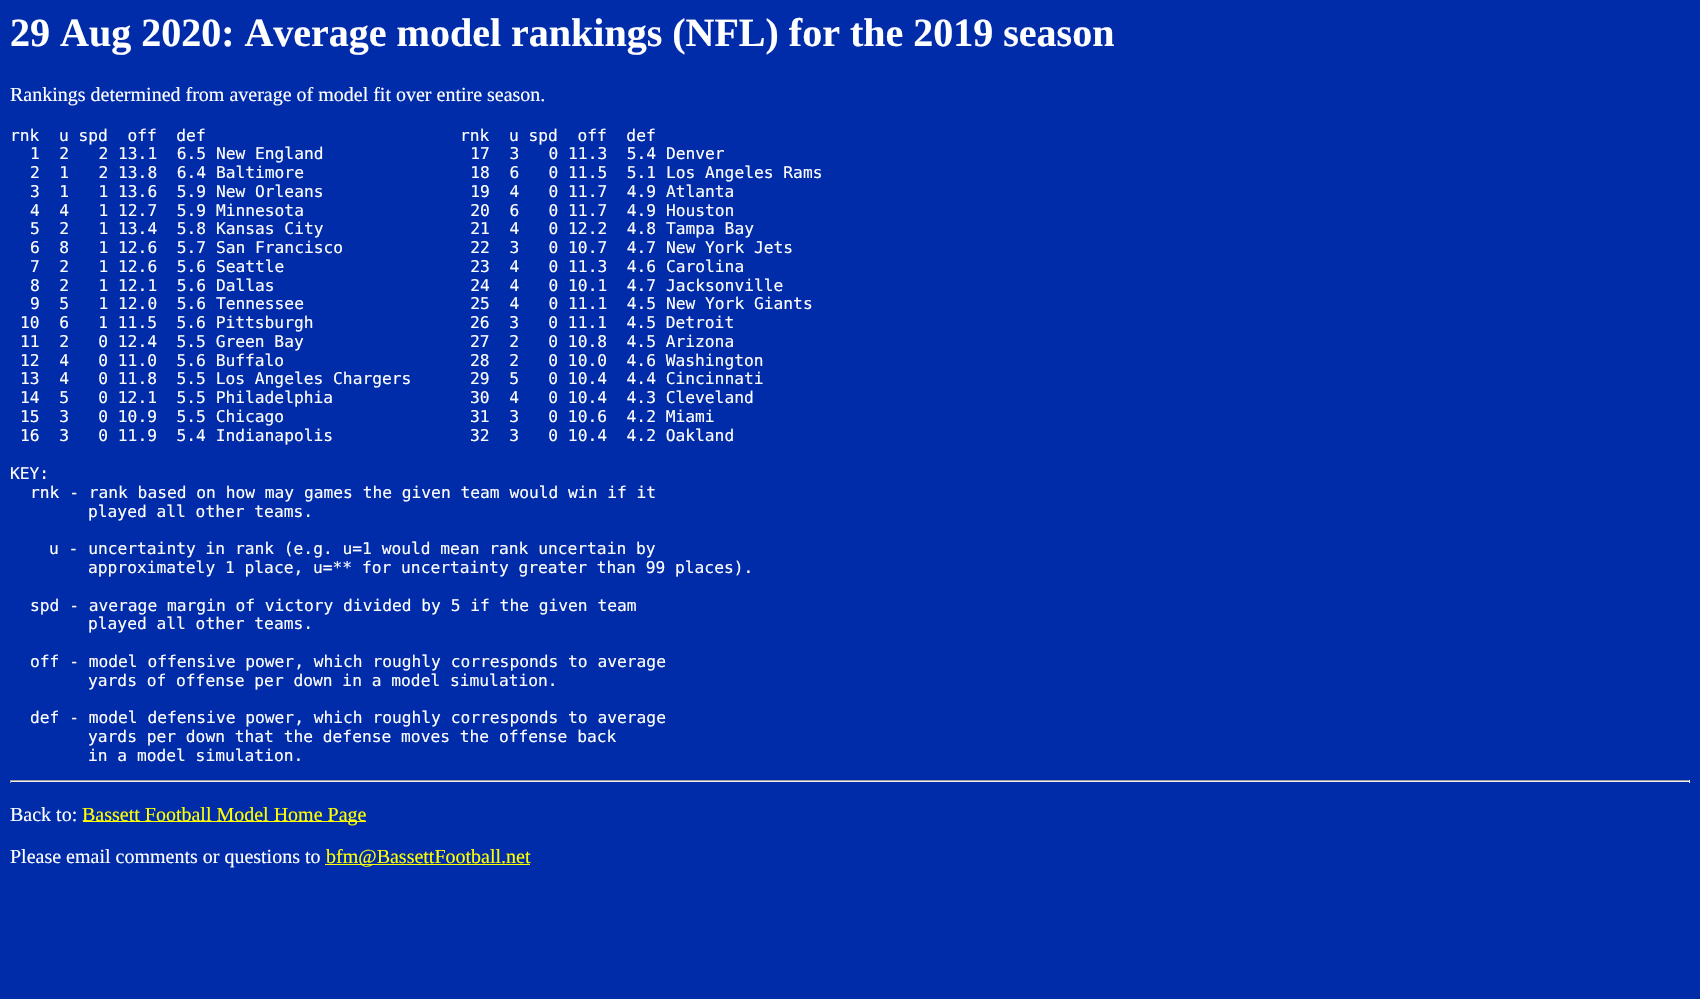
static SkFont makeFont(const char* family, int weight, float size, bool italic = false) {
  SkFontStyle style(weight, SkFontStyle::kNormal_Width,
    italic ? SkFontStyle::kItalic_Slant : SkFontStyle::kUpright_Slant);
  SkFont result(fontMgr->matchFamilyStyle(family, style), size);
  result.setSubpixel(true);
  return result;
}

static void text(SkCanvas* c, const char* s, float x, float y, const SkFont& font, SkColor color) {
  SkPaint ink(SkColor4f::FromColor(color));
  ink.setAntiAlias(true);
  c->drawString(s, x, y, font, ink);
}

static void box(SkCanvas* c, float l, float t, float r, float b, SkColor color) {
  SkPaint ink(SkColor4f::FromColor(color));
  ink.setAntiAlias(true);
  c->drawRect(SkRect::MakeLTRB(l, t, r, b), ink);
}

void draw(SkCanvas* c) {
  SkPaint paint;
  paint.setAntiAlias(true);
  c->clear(0xff002caa);
  SkFont face1 = makeFont("Liberation Serif", 700, 40);
  text(c, "29 Aug 2020: Average model rankings (NFL) for the 2019 season", 10, 46, face1, 0xffffffff);
  SkFont face2 = makeFont("Liberation Serif", 400, 20);
  text(c, "Rankings determined from average of model fit over entire season.", 10, 101, face2, 0xffffffff);
  SkFont face3 = makeFont("DejaVu Sans Mono", 400, 16.25f);
  text(c, "rnk  u spd  off  def                          rnk  u spd  off  def", 10, 141, face3, 0xffffffff);
  text(c, "1  2   2 13.1  6.5 New England               17  3   0 11.3  5.4 Denver", 30, 159, face3, 0xffffffff);
  text(c, "2  1   2 13.8  6.4 Baltimore                 18  6   0 11.5  5.1 Los Angeles Rams", 30, 178, face3, 0xffffffff);
  text(c, "3  1   1 13.6  5.9 New Orleans               19  4   0 11.7  4.9 Atlanta", 30, 197, face3, 0xffffffff);
  text(c, "4  4   1 12.7  5.9 Minnesota                 20  6   0 11.7  4.9 Houston", 30, 216, face3, 0xffffffff);
  text(c, "5  2   1 13.4  5.8 Kansas City               21  4   0 12.2  4.8 Tampa Bay", 30, 234, face3, 0xffffffff);
  text(c, "6  8   1 12.6  5.7 San Francisco             22  3   0 10.7  4.7 New York Jets", 30, 253, face3, 0xffffffff);
  text(c, "7  2   1 12.6  5.6 Seattle                   23  4   0 11.3  4.6 Carolina", 30, 272, face3, 0xffffffff);
  text(c, "8  2   1 12.1  5.6 Dallas                    24  4   0 10.1  4.7 Jacksonville", 30, 291, face3, 0xffffffff);
  text(c, "9  5   1 12.0  5.6 Tennessee                 25  4   0 11.1  4.5 New York Giants", 30, 309, face3, 0xffffffff);
  text(c, "10  6   1 11.5  5.6 Pittsburgh                26  3   0 11.1  4.5 Detroit", 20, 328, face3, 0xffffffff);
  text(c, "11  2   0 12.4  5.5 Green Bay                 27  2   0 10.8  4.5 Arizona", 20, 347, face3, 0xffffffff);
  text(c, "12  4   0 11.0  5.6 Buffalo                   28  2   0 10.0  4.6 Washington", 20, 366, face3, 0xffffffff);
  text(c, "13  4   0 11.8  5.5 Los Angeles Chargers      29  5   0 10.4  4.4 Cincinnati", 20, 384, face3, 0xffffffff);
  text(c, "14  5   0 12.1  5.5 Philadelphia              30  4   0 10.4  4.3 Cleveland", 20, 403, face3, 0xffffffff);
  text(c, "15  3   0 10.9  5.5 Chicago                   31  3   0 10.6  4.2 Miami", 20, 422, face3, 0xffffffff);
  text(c, "16  3   0 11.9  5.4 Indianapolis              32  3   0 10.4  4.2 Oakland", 20, 441, face3, 0xffffffff);
  text(c, "KEY:", 10, 479, face3, 0xffffffff);
  text(c, "rnk - rank based on how may games the given team would win if it", 30, 498, face3, 0xffffffff);
  text(c, "played all other teams.", 88, 517, face3, 0xffffffff);
  text(c, "u - uncertainty in rank (e.g. u=1 would mean rank uncertain by", 49, 554, face3, 0xffffffff);
  text(c, "approximately 1 place, u=** for uncertainty greater than 99 places).", 88, 573, face3, 0xffffffff);
  text(c, "spd - average margin of victory divided by 5 if the given team", 30, 611, face3, 0xffffffff);
  text(c, "played all other teams.", 88, 629, face3, 0xffffffff);
  text(c, "off - model offensive power, which roughly corresponds to average", 30, 667, face3, 0xffffffff);
  text(c, "yards of offense per down in a model simulation.", 88, 686, face3, 0xffffffff);
  text(c, "def - model defensive power, which roughly corresponds to average", 30, 723, face3, 0xffffffff);
  text(c, "yards per down that the defense moves the offense back", 88, 742, face3, 0xffffffff);
  text(c, "in a model simulation.", 88, 761, face3, 0xffffffff);
  box(c, 10, 780, 1690, 781, 0xff9f9f9f);
  box(c, 1689, 780, 1690, 783, 0xffeeeeee);
  box(c, 10, 781, 1690, 782, 0xffeeeeee);
  box(c, 10, 780, 11, 783, 0xff9f9f9f);
  text(c, "Back to:", 10, 821, face2, 0xffffffff);
  box(c, 83, 821, 366, 822, 0xffffff00);
  text(c, "Bassett Football Model Home Page", 82, 821, face2, 0xffffff00);
  text(c, "Please email comments or questions to", 10, 863, face2, 0xffffffff);
  box(c, 325, 864, 530, 865, 0xffffff00);
  text(c, "bfm@BassettFootball.net", 326, 863, face2, 0xffffff00);
}
